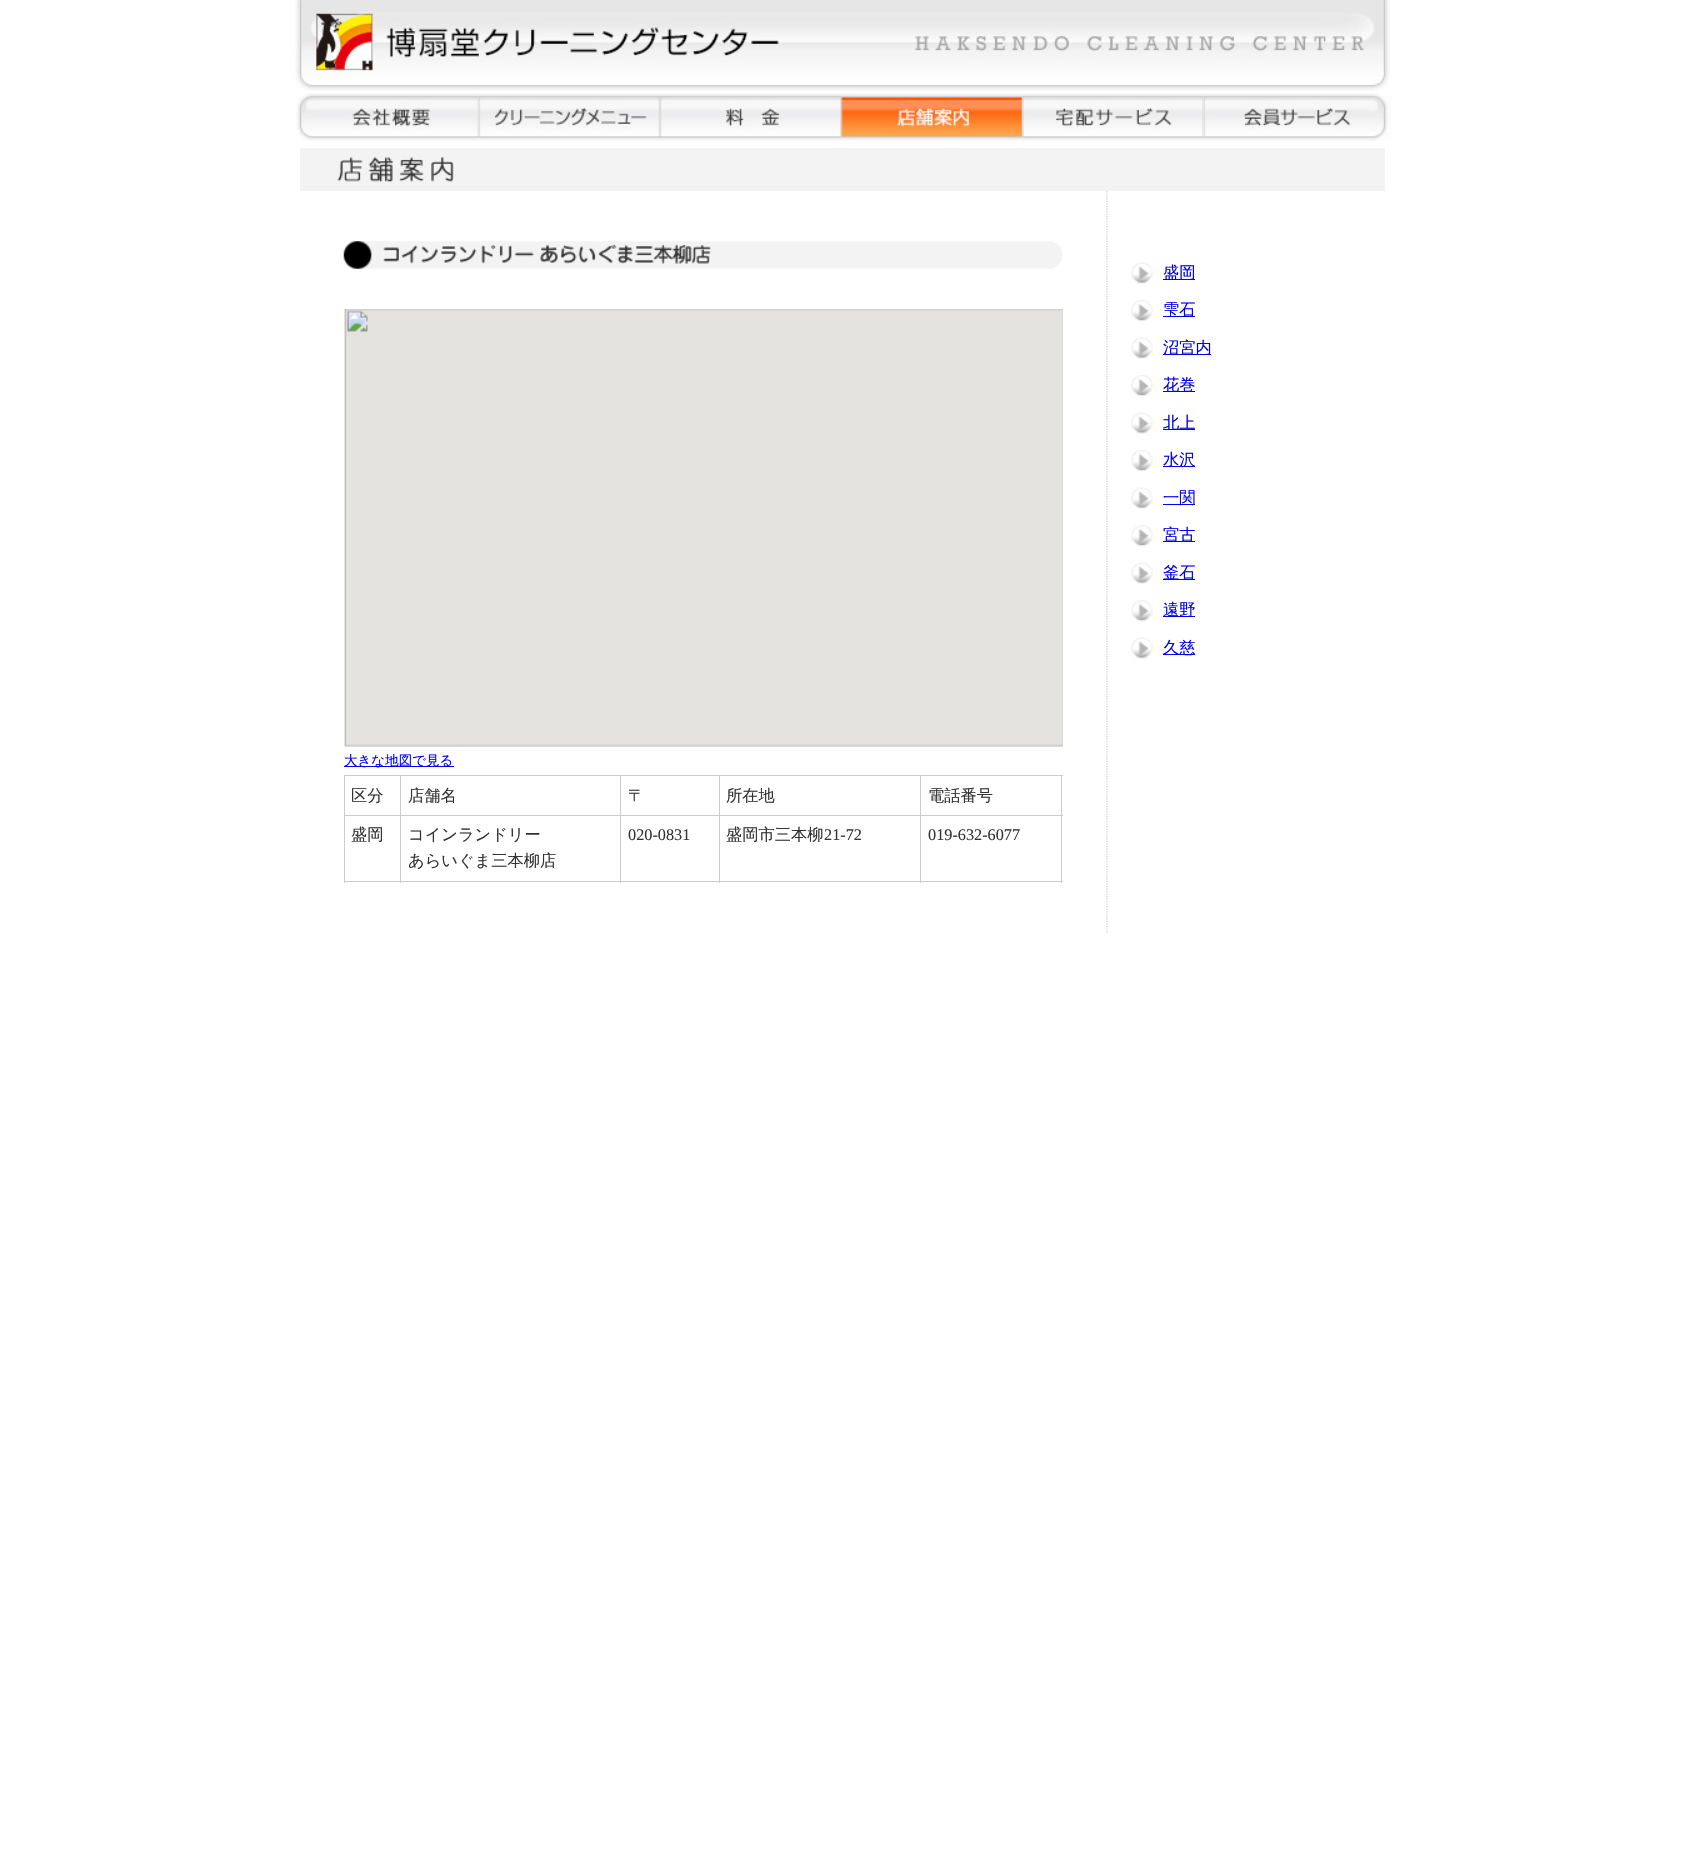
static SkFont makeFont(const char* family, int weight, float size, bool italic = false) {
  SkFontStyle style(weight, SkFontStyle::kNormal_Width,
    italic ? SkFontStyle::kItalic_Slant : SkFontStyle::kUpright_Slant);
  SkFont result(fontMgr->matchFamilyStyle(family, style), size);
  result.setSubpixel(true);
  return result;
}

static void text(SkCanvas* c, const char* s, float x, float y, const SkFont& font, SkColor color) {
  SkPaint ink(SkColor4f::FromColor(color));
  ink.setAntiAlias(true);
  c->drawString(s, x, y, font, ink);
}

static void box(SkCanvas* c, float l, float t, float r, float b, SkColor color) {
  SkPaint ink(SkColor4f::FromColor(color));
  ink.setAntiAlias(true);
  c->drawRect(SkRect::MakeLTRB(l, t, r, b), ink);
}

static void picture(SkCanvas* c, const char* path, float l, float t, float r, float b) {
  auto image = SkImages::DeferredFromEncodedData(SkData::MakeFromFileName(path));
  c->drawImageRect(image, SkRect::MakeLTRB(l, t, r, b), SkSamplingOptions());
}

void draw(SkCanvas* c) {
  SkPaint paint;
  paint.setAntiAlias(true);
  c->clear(0xffffffff);
  picture(c, "img_01.png", 295, 0, 1390, 91);
  picture(c, "img_02.png", 296, 93, 479, 141);
  picture(c, "img_03.png", 479, 93, 660, 141);
  picture(c, "img_04.png", 660, 93, 842, 141);
  picture(c, "img_05.png", 841, 92, 1023, 142);
  picture(c, "img_06.png", 1022, 93, 1204, 141);
  picture(c, "img_07.png", 1204, 93, 1391, 141);
  box(c, 300, 148, 1385, 191, 0xfff3f3f3);
  picture(c, "img_08.png", 337, 157, 454, 182);
  picture(c, "img_09.png", 1131, 262, 1153, 284);
  box(c, 1163, 279, 1195, 280, 0xff0000ee);
  SkFont face1 = makeFont("WenQuanYi Zen Hei", 500, 16.25f);
  text(c, "盛岡", 1163, 278, face1, 0xff0000ee);
  picture(c, "img_10.png", 1131, 300, 1153, 322);
  box(c, 1163, 316, 1195, 317, 0xff0000ee);
  text(c, "雫石", 1163, 315, face1, 0xff0000ee);
  picture(c, "img_09.png", 1131, 337, 1153, 359);
  box(c, 1163, 354, 1211, 355, 0xff0000ee);
  text(c, "沼宮内", 1163, 353, face1, 0xff0000ee);
  picture(c, "img_10.png", 1131, 375, 1153, 397);
  box(c, 1163, 391, 1195, 392, 0xff0000ee);
  text(c, "花巻", 1163, 390, face1, 0xff0000ee);
  picture(c, "img_09.png", 1131, 412, 1153, 434);
  box(c, 1163, 429, 1195, 430, 0xff0000ee);
  text(c, "北上", 1163, 428, face1, 0xff0000ee);
  picture(c, "img_10.png", 1131, 450, 1153, 472);
  box(c, 1163, 466, 1195, 467, 0xff0000ee);
  text(c, "水沢", 1163, 465, face1, 0xff0000ee);
  picture(c, "img_09.png", 1131, 487, 1153, 509);
  box(c, 1163, 504, 1195, 505, 0xff0000ee);
  text(c, "一関", 1163, 503, face1, 0xff0000ee);
  picture(c, "img_10.png", 1131, 525, 1153, 547);
  box(c, 1163, 541, 1195, 542, 0xff0000ee);
  text(c, "宮古", 1163, 540, face1, 0xff0000ee);
  picture(c, "img_09.png", 1131, 562, 1153, 584);
  box(c, 1163, 579, 1195, 580, 0xff0000ee);
  text(c, "釜石", 1163, 578, face1, 0xff0000ee);
  picture(c, "img_10.png", 1131, 600, 1153, 622);
  box(c, 1163, 616, 1195, 617, 0xff0000ee);
  text(c, "遠野", 1163, 615, face1, 0xff0000ee);
  picture(c, "img_09.png", 1131, 637, 1153, 659);
  box(c, 1163, 654, 1195, 655, 0xff0000ee);
  text(c, "久慈", 1163, 653, face1, 0xff0000ee);
  paint.setStyle(SkPaint::kStroke_Style);
  paint.setStrokeWidth(1.2f);
  paint.setColor(0xffcdcdcd);
  paint.setPathEffect(SkDashPathEffect::Make({{1.25f, 1.25f}}, 0));
  c->drawPath(SkPathBuilder().moveTo(1107, 191).lineTo(1107, 934).detach(), paint);
  paint.setPathEffect(nullptr);
  paint.setColor(0xffffffff);
  paint.setPathEffect(SkDashPathEffect::Make({{1.25f, 1.25f}}, 0));
  c->drawPath(SkPathBuilder().moveTo(294, 933).lineTo(1107.5f, 933).detach(), paint);
  paint.setPathEffect(nullptr);
  picture(c, "img_11.png", 343, 241, 1063, 269);
  picture(c, "img_12.png", 383, 244, 711, 264);
  picture(c, "img_13.png", 344, 309, 1063, 747);
  box(c, 344, 766, 454, 767, 0xff0000ff);
  SkFont face2 = makeFont("WenQuanYi Zen Hei", 500, 13.5f);
  text(c, "大きな地図で見る", 344, 765, face2, 0xff0000ff);
  box(c, 344, 775, 1063, 776, 0xffcccccc);
  box(c, 1061, 775, 1062, 883, 0xffcccccc);
  box(c, 344, 881, 1063, 882, 0xffcccccc);
  box(c, 344, 775, 345, 883, 0xffcccccc);
  text(c, "区分", 351, 801, face1, 0xff333333);
  box(c, 920, 815, 1063, 816, 0xffcccccc);
  box(c, 920, 815, 921, 883, 0xffcccccc);
  box(c, 719, 815, 921, 816, 0xffcccccc);
  box(c, 719, 815, 720, 883, 0xffcccccc);
  box(c, 620, 815, 720, 816, 0xffcccccc);
  box(c, 620, 815, 621, 883, 0xffcccccc);
  box(c, 400, 815, 621, 816, 0xffcccccc);
  box(c, 400, 815, 401, 883, 0xffcccccc);
  box(c, 344, 815, 401, 816, 0xffcccccc);
  box(c, 400, 775, 401, 816, 0xffcccccc);
  text(c, "店舗名", 408, 801, face1, 0xff333333);
  box(c, 620, 775, 621, 816, 0xffcccccc);
  text(c, "〒", 628, 801, face1, 0xff333333);
  box(c, 719, 775, 720, 816, 0xffcccccc);
  text(c, "所在地", 726, 801, face1, 0xff333333);
  box(c, 920, 775, 921, 816, 0xffcccccc);
  text(c, "電話番号", 928, 801, face1, 0xff333333);
  text(c, "盛岡", 351, 840, face1, 0xff333333);
  text(c, "コインランドリー", 408, 840, face1, 0xff333333);
  text(c, "あらいぐま三本柳店", 408, 866, face1, 0xff333333);
  SkFont face3 = makeFont("Liberation Serif", 400, 16.25f);
  text(c, "020-0831", 628, 840, face3, 0xff333333);
  text(c, "盛岡市三本柳", 726, 840, face1, 0xff333333);
  text(c, "21-72", 824, 840, face3, 0xff333333);
  text(c, "019-632-6077", 928, 840, face3, 0xff333333);
}
